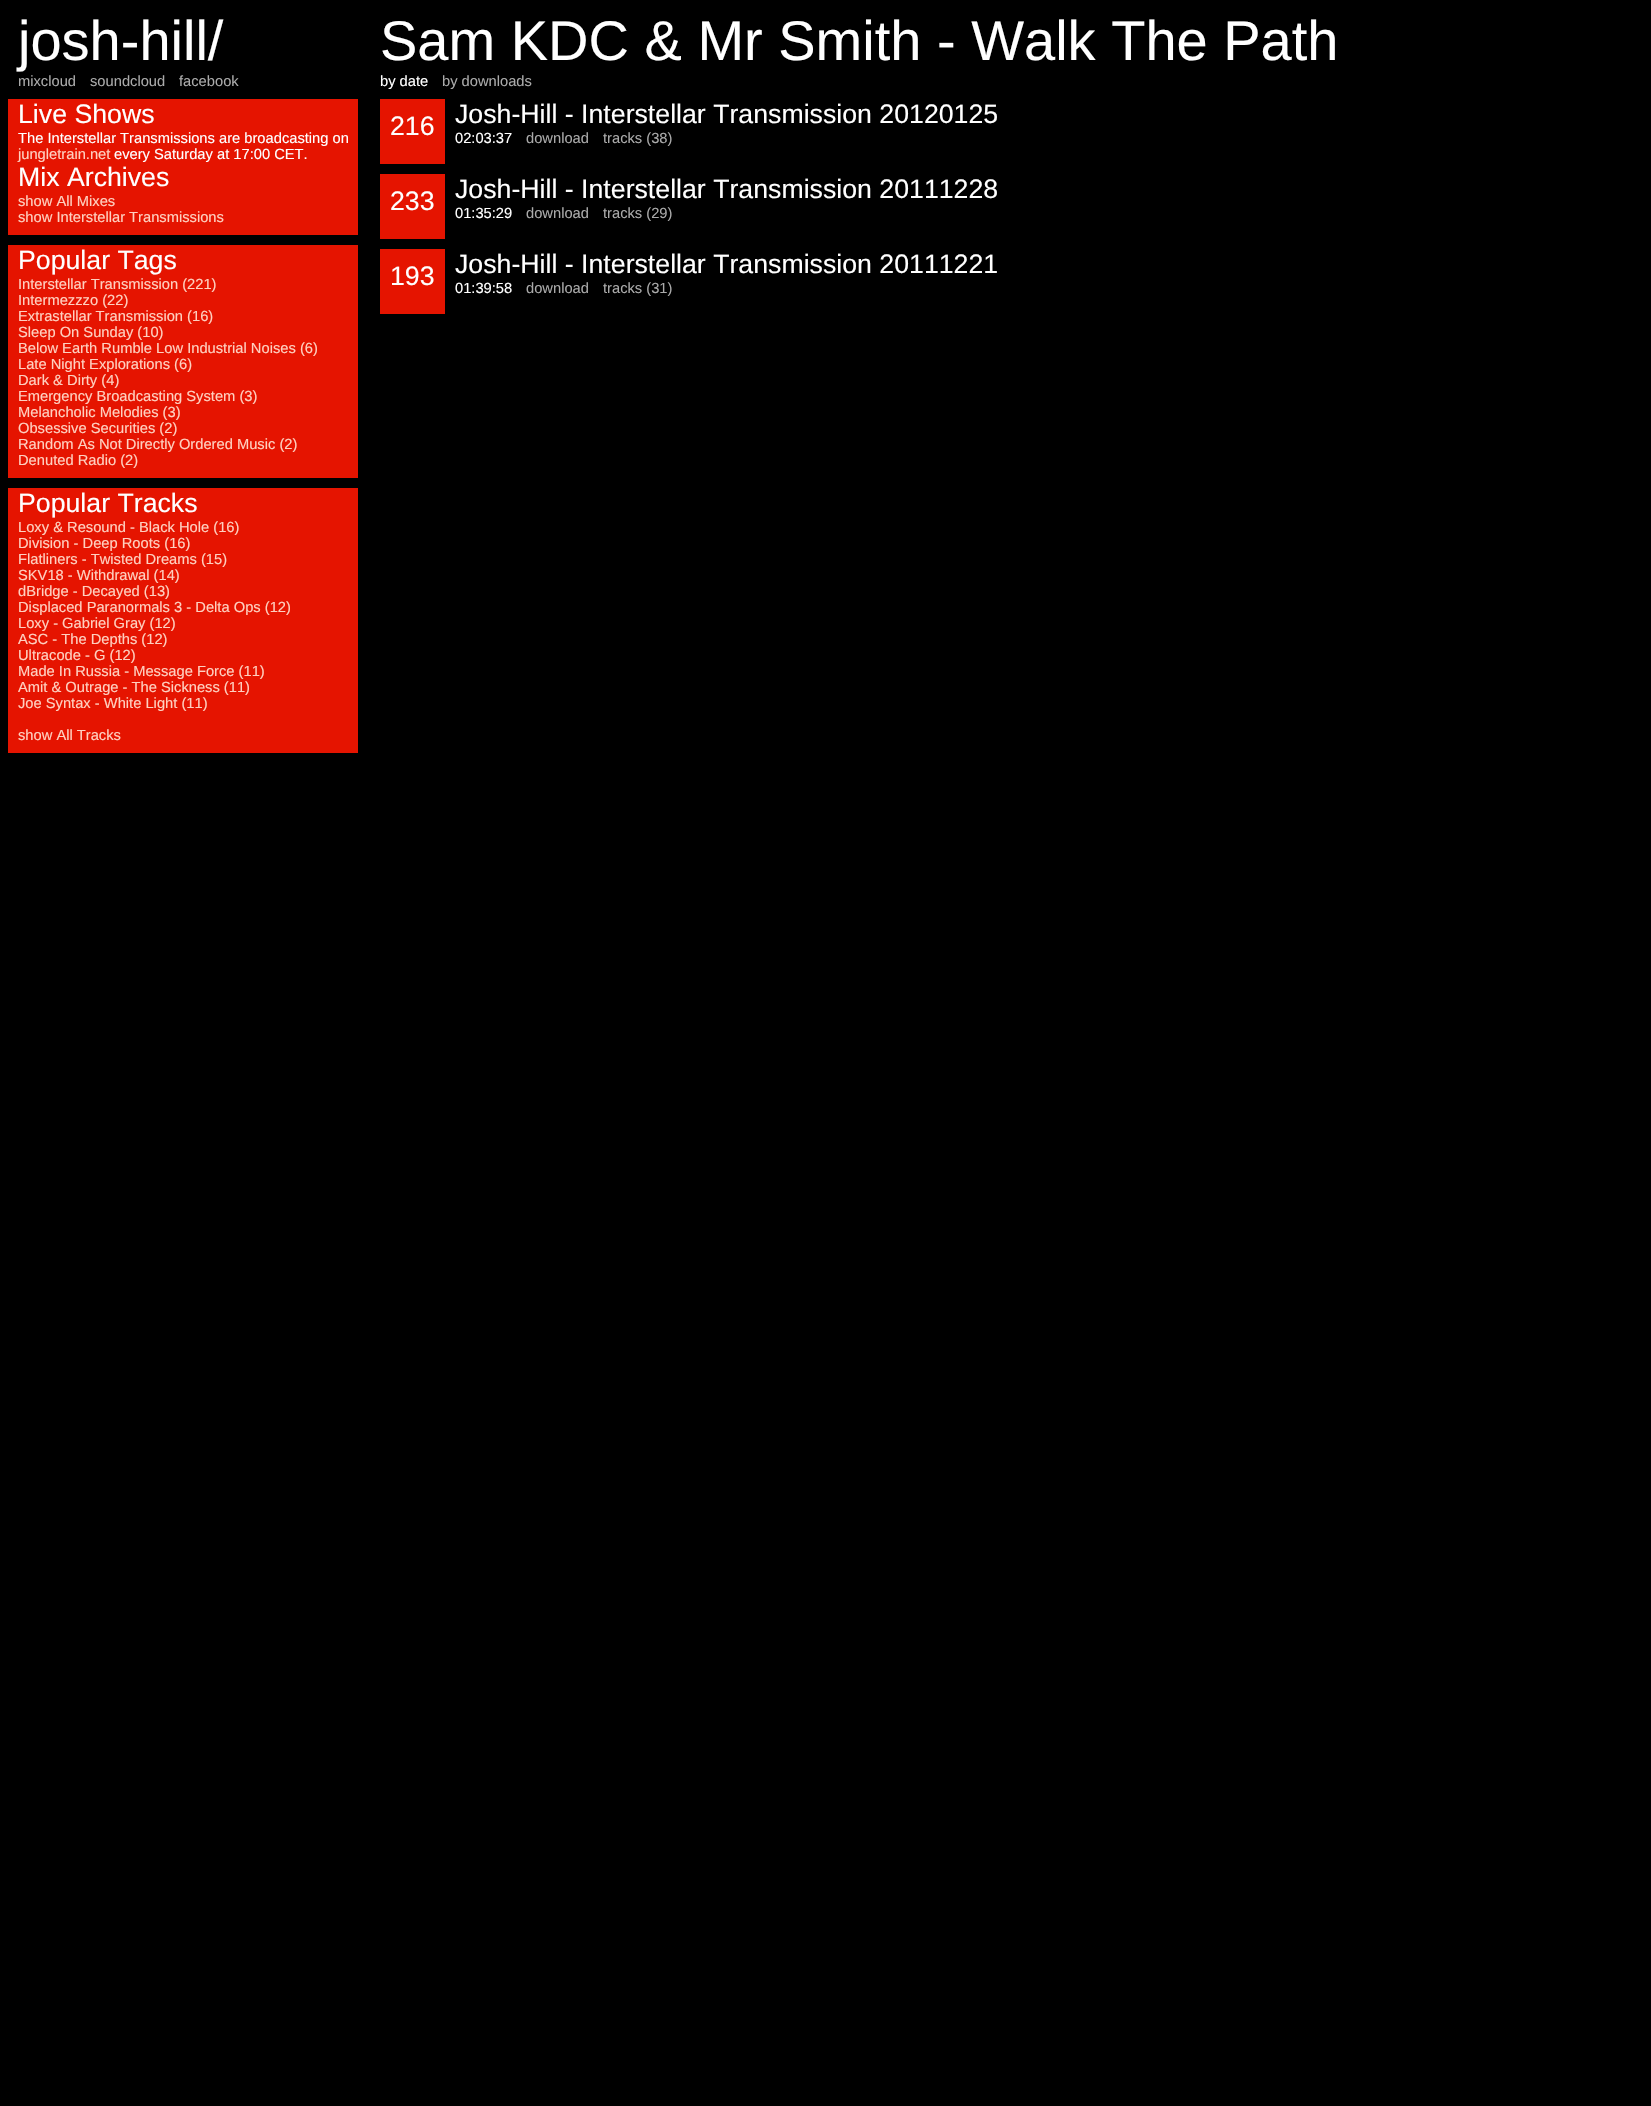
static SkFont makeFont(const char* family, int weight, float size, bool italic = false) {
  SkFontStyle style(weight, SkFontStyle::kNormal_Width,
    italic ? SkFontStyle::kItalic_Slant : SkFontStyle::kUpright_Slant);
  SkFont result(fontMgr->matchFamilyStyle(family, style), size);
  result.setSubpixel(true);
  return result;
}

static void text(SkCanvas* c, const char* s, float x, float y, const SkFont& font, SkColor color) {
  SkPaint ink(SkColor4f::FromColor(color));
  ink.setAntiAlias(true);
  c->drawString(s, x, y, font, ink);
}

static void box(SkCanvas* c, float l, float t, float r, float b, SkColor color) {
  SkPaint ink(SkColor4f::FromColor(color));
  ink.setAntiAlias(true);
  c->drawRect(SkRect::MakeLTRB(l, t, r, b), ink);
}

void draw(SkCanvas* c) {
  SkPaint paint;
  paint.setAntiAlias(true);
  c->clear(0xff000000);
  SkFont face1 = makeFont("Liberation Sans", 400, 56);
  text(c, "josh-hill/", 18, 60, face1, 0xffffffff);
  SkFont face2 = makeFont("Liberation Sans", 400, 14.7f);
  text(c, "mixcloud", 18, 86, face2, 0xffaaaaaa);
  text(c, "soundcloud", 90, 86, face2, 0xffaaaaaa);
  text(c, "facebook", 179, 86, face2, 0xffaaaaaa);
  box(c, 8, 99, 358, 235, 0xffe51400);
  SkFont face3 = makeFont("Liberation Sans", 400, 26.7f);
  text(c, "Live Shows", 18, 123, face3, 0xffffffff);
  text(c, "The Interstellar Transmissions are broadcasting on", 18, 143, face2, 0xffffffff);
  text(c, "jungletrain.net", 18, 159, face2, 0xffffd0c0);
  text(c, "every Saturday at 17:00 CET.", 114, 159, face2, 0xffffffff);
  text(c, "Mix Archives", 18, 186, face3, 0xffffffff);
  text(c, "show All Mixes", 18, 206, face2, 0xffffd0c0);
  text(c, "show Interstellar Transmissions", 18, 222, face2, 0xffffd0c0);
  box(c, 8, 245, 358, 478, 0xffe51400);
  text(c, "Popular Tags", 18, 269, face3, 0xffffffff);
  text(c, "Interstellar Transmission (221)", 18, 289, face2, 0xffffd0c0);
  text(c, "Intermezzzo (22)", 18, 305, face2, 0xffffd0c0);
  text(c, "Extrastellar Transmission (16)", 18, 321, face2, 0xffffd0c0);
  text(c, "Sleep On Sunday (10)", 18, 337, face2, 0xffffd0c0);
  text(c, "Below Earth Rumble Low Industrial Noises (6)", 18, 353, face2, 0xffffd0c0);
  text(c, "Late Night Explorations (6)", 18, 369, face2, 0xffffd0c0);
  text(c, "Dark & Dirty (4)", 18, 385, face2, 0xffffd0c0);
  text(c, "Emergency Broadcasting System (3)", 18, 401, face2, 0xffffd0c0);
  text(c, "Melancholic Melodies (3)", 18, 417, face2, 0xffffd0c0);
  text(c, "Obsessive Securities (2)", 18, 433, face2, 0xffffd0c0);
  text(c, "Random As Not Directly Ordered Music (2)", 18, 449, face2, 0xffffd0c0);
  text(c, "Denuted Radio (2)", 18, 465, face2, 0xffffd0c0);
  box(c, 8, 488, 358, 753, 0xffe51400);
  text(c, "Popular Tracks", 18, 512, face3, 0xffffffff);
  text(c, "Loxy & Resound - Black Hole (16)", 18, 532, face2, 0xffffd0c0);
  text(c, "Division - Deep Roots (16)", 18, 548, face2, 0xffffd0c0);
  text(c, "Flatliners - Twisted Dreams (15)", 18, 564, face2, 0xffffd0c0);
  text(c, "SKV18 - Withdrawal (14)", 18, 580, face2, 0xffffd0c0);
  text(c, "dBridge - Decayed (13)", 18, 596, face2, 0xffffd0c0);
  text(c, "Displaced Paranormals 3 - Delta Ops (12)", 18, 612, face2, 0xffffd0c0);
  text(c, "Loxy - Gabriel Gray (12)", 18, 628, face2, 0xffffd0c0);
  text(c, "ASC - The Depths (12)", 18, 644, face2, 0xffffd0c0);
  text(c, "Ultracode - G (12)", 18, 660, face2, 0xffffd0c0);
  text(c, "Made In Russia - Message Force (11)", 18, 676, face2, 0xffffd0c0);
  text(c, "Amit & Outrage - The Sickness (11)", 18, 692, face2, 0xffffd0c0);
  text(c, "Joe Syntax - White Light (11)", 18, 708, face2, 0xffffd0c0);
  text(c, "show All Tracks", 18, 740, face2, 0xffffd0c0);
  text(c, "Sam KDC & Mr Smith - Walk The Path", 380, 60, face1, 0xffffffff);
  text(c, "by date", 380, 86, face2, 0xffffffff);
  text(c, "by downloads", 442, 86, face2, 0xffaaaaaa);
  box(c, 380, 99, 445, 164, 0xffe51400);
  text(c, "216", 390, 135, face3, 0xffffffff);
  text(c, "Josh-Hill - Interstellar Transmission 20120125", 455, 123, face3, 0xffffffff);
  text(c, "02:03:37", 455, 143, face2, 0xffffffff);
  text(c, "download", 526, 143, face2, 0xffaaaaaa);
  text(c, "tracks (38)", 603, 143, face2, 0xffaaaaaa);
  box(c, 380, 174, 445, 239, 0xffe51400);
  text(c, "233", 390, 210, face3, 0xffffffff);
  text(c, "Josh-Hill - Interstellar Transmission 20111228", 455, 198, face3, 0xffffffff);
  text(c, "01:35:29", 455, 218, face2, 0xffffffff);
  text(c, "download", 526, 218, face2, 0xffaaaaaa);
  text(c, "tracks (29)", 603, 218, face2, 0xffaaaaaa);
  box(c, 380, 249, 445, 314, 0xffe51400);
  text(c, "193", 390, 285, face3, 0xffffffff);
  text(c, "Josh-Hill - Interstellar Transmission 20111221", 455, 273, face3, 0xffffffff);
  text(c, "01:39:58", 455, 293, face2, 0xffffffff);
  text(c, "download", 526, 293, face2, 0xffaaaaaa);
  text(c, "tracks (31)", 603, 293, face2, 0xffaaaaaa);
}
